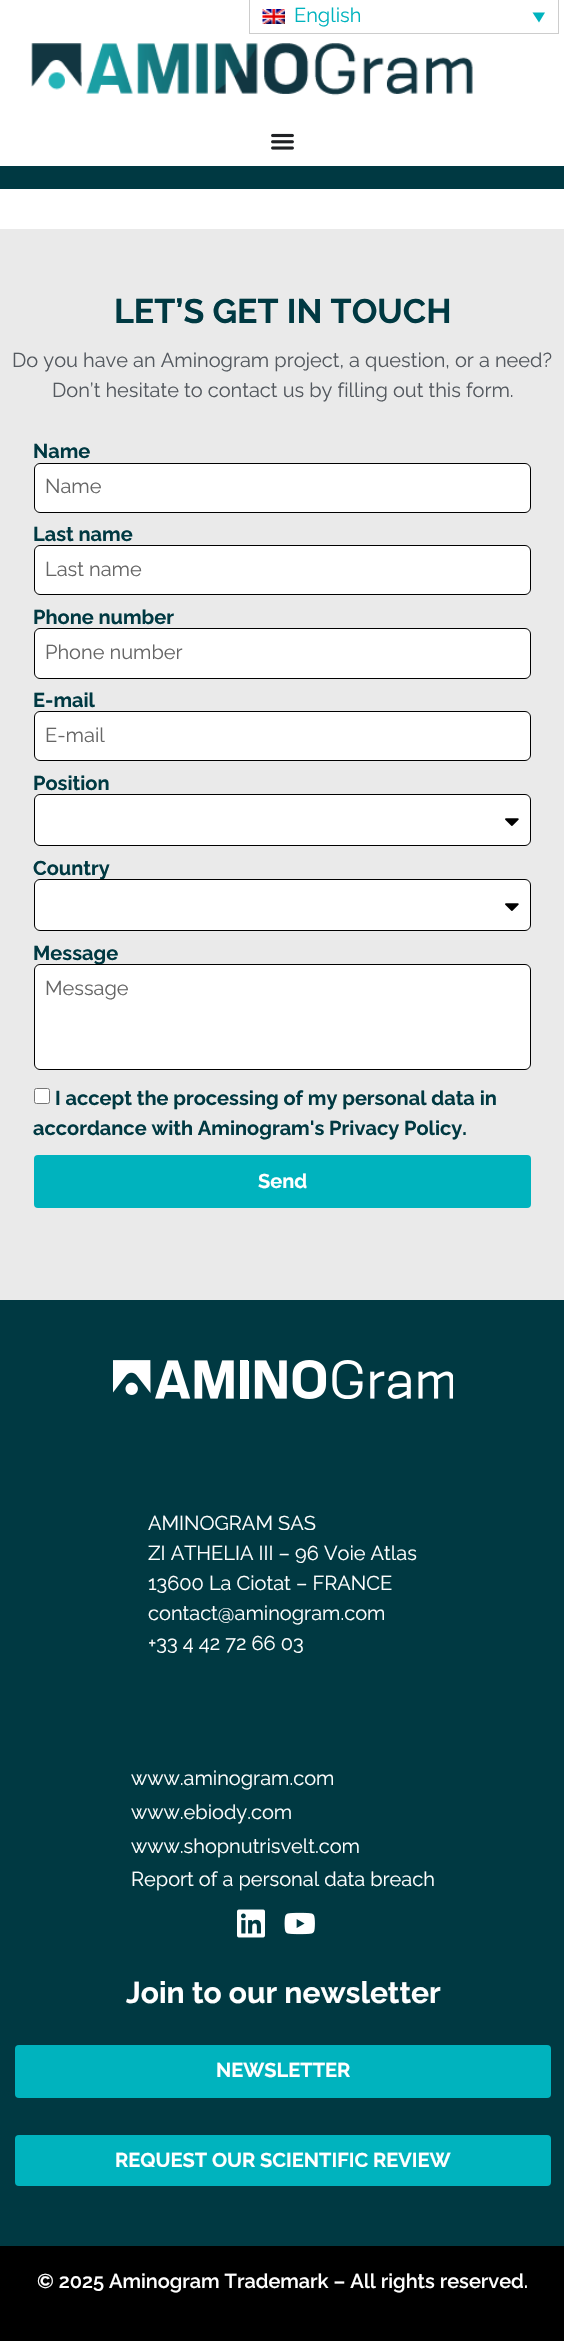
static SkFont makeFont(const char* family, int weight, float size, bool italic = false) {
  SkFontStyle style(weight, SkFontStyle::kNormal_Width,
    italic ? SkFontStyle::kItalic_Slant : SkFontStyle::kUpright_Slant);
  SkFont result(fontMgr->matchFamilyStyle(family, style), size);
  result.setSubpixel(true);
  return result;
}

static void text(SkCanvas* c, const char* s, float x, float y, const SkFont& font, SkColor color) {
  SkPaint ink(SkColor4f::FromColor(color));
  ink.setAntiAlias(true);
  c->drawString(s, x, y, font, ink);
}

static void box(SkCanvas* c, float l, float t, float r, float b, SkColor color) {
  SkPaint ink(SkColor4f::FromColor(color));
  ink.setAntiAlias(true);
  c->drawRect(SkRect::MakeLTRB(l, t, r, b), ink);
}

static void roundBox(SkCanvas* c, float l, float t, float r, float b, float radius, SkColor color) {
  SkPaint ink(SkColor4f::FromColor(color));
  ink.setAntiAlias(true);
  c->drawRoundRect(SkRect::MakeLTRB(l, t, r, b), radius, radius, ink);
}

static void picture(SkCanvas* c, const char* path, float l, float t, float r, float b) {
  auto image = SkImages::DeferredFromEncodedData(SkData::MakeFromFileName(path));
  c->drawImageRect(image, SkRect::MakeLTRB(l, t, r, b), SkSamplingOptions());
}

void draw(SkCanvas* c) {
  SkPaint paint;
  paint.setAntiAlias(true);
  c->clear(0xffffffff);
  paint.setStyle(SkPaint::kStroke_Style);
  paint.setStrokeWidth(1);
  paint.setColor(0xffcdcdcd);
  c->drawRect(SkRect::MakeLTRB(249.5f, -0.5f, 558.5f, 33.5f), paint);
  picture(c, "img_01.png", 262, 9, 285, 24);
  SkFont face1 = makeFont("Raleway", 400, 20);
  text(c, "English", 294, 22, face1, 0xff00b3be);
  paint.setStyle(SkPaint::kFill_Style);
  paint.setColor(0xff00b3be);
  c->drawPath(SkPathBuilder().moveTo(532.5f, 12.5f).lineTo(545, 12.5f).lineTo(539, 22.5f).close().detach(), paint);
  picture(c, "img_02.png", 31, 43, 473, 96);
  picture(c, "img_03.png", 271, 133, 294, 150);
  box(c, 0, 166, 564, 189, 0xff003942);
  box(c, 0, 229, 564, 1300, 0xffeaeaea);
  SkFont face2 = makeFont("Raleway", 700, 34);
  text(c, "LET’S GET IN TOUCH", 114, 323, face2, 0xff003942);
  text(c, "Do you have an Aminogram project, a question, or a need?", 12, 367, face1, 0xff54595f);
  text(c, "Don’t hesitate to contact us by filling out this form.", 52, 397, face1, 0xff54595f);
  SkFont face3 = makeFont("Raleway", 700, 20);
  text(c, "Name", 33, 458, face3, 0xff003942);
  paint.setColor(0xffffffff);
  c->drawRoundRect(SkRect::MakeLTRB(34.5f, 463.5f, 530.5f, 512.5f), 5.5f, 5.5f, paint);
  paint.setStyle(SkPaint::kStroke_Style);
  paint.setColor(0xff000000);
  c->drawRoundRect(SkRect::MakeLTRB(34.5f, 463.5f, 530.5f, 512.5f), 5.5f, 5.5f, paint);
  text(c, "Name", 45, 493, face1, 0xff666666);
  text(c, "Last name", 33, 541, face3, 0xff003942);
  paint.setStyle(SkPaint::kFill_Style);
  paint.setColor(0xffffffff);
  c->drawRoundRect(SkRect::MakeLTRB(34.5f, 545.5f, 530.5f, 594.5f), 5.5f, 5.5f, paint);
  paint.setStyle(SkPaint::kStroke_Style);
  paint.setColor(0xff000000);
  c->drawRoundRect(SkRect::MakeLTRB(34.5f, 545.5f, 530.5f, 594.5f), 5.5f, 5.5f, paint);
  text(c, "Last name", 45, 576, face1, 0xff666666);
  text(c, "Phone number", 33, 624, face3, 0xff003942);
  paint.setStyle(SkPaint::kFill_Style);
  paint.setColor(0xffffffff);
  c->drawRoundRect(SkRect::MakeLTRB(34.5f, 628.5f, 530.5f, 678.5f), 5.5f, 5.5f, paint);
  paint.setStyle(SkPaint::kStroke_Style);
  paint.setColor(0xff000000);
  c->drawRoundRect(SkRect::MakeLTRB(34.5f, 628.5f, 530.5f, 678.5f), 5.5f, 5.5f, paint);
  text(c, "Phone number", 45, 659, face1, 0xff666666);
  text(c, "E-mail", 33, 707, face3, 0xff003942);
  paint.setStyle(SkPaint::kFill_Style);
  paint.setColor(0xffffffff);
  c->drawRoundRect(SkRect::MakeLTRB(34.5f, 711.5f, 530.5f, 760.5f), 5.5f, 5.5f, paint);
  paint.setStyle(SkPaint::kStroke_Style);
  paint.setColor(0xff000000);
  c->drawRoundRect(SkRect::MakeLTRB(34.5f, 711.5f, 530.5f, 760.5f), 5.5f, 5.5f, paint);
  text(c, "E-mail", 45, 742, face1, 0xff666666);
  text(c, "Position", 33, 790, face3, 0xff003942);
  paint.setStyle(SkPaint::kFill_Style);
  paint.setColor(0xffffffff);
  c->drawRoundRect(SkRect::MakeLTRB(34.5f, 794.5f, 530.5f, 845.5f), 5.5f, 5.5f, paint);
  paint.setStyle(SkPaint::kStroke_Style);
  paint.setColor(0xff000000);
  c->drawRoundRect(SkRect::MakeLTRB(34.5f, 794.5f, 530.5f, 845.5f), 5.5f, 5.5f, paint);
  picture(c, "img_04.png", 505, 818, 519, 826);
  text(c, "Country", 33, 875, face3, 0xff003942);
  paint.setStyle(SkPaint::kFill_Style);
  paint.setColor(0xffffffff);
  c->drawRoundRect(SkRect::MakeLTRB(34.5f, 879.5f, 530.5f, 930.5f), 5.5f, 5.5f, paint);
  paint.setStyle(SkPaint::kStroke_Style);
  paint.setColor(0xff000000);
  c->drawRoundRect(SkRect::MakeLTRB(34.5f, 879.5f, 530.5f, 930.5f), 5.5f, 5.5f, paint);
  picture(c, "img_04.png", 505, 903, 519, 911);
  text(c, "Message", 33, 960, face3, 0xff003942);
  paint.setStyle(SkPaint::kFill_Style);
  paint.setColor(0xffffffff);
  c->drawRoundRect(SkRect::MakeLTRB(34.5f, 964.5f, 530.5f, 1069.5f), 5.5f, 5.5f, paint);
  paint.setStyle(SkPaint::kStroke_Style);
  paint.setColor(0xff000000);
  c->drawRoundRect(SkRect::MakeLTRB(34.5f, 964.5f, 530.5f, 1069.5f), 5.5f, 5.5f, paint);
  text(c, "Message", 45, 995, face1, 0xff666666);
  paint.setStyle(SkPaint::kFill_Style);
  paint.setColor(0xffffffff);
  c->drawRoundRect(SkRect::MakeLTRB(34.5f, 1088.5f, 49.5f, 1103.5f), 2, 2, paint);
  paint.setStyle(SkPaint::kStroke_Style);
  paint.setColor(0xff767676);
  c->drawRoundRect(SkRect::MakeLTRB(34.5f, 1088.5f, 49.5f, 1103.5f), 2, 2, paint);
  text(c, "I accept the processing of my personal data in", 55, 1105, face3, 0xff003942);
  text(c, "accordance with Aminogram's Privacy Policy.", 33, 1135, face3, 0xff003942);
  roundBox(c, 34, 1155, 531, 1208, 4, 0xff00b3be);
  text(c, "Send", 258, 1188, face3, 0xffffffff);
  box(c, 0, 1300, 564, 2246, 0xff003942);
  picture(c, "img_05.png", 113, 1360, 453, 1399);
  text(c, "AMINOGRAM SAS", 148, 1530, face1, 0xffffffff);
  text(c, "ZI ATHELIA III – 96 Voie Atlas", 148, 1560, face1, 0xffffffff);
  text(c, "13600 La Ciotat – FRANCE", 148, 1590, face1, 0xffffffff);
  text(c, "contact@aminogram.com", 148, 1620, face1, 0xffffffff);
  text(c, "+33 4 42 72 66 03", 148, 1650, face1, 0xffffffff);
  text(c, "www.aminogram.com", 131, 1785, face1, 0xffffffff);
  text(c, "www.ebiody.com", 131, 1819, face1, 0xffffffff);
  text(c, "www.shopnutrisvelt.com", 131, 1853, face1, 0xffffffff);
  text(c, "Report of a personal data breach", 131, 1886, face1, 0xffffffff);
  picture(c, "img_06.png", 237, 1909, 265, 1938);
  picture(c, "img_07.png", 284, 1912, 315, 1935);
  SkFont face4 = makeFont("Raleway", 700, 30);
  text(c, "Join to our newsletter", 126, 2003, face4, 0xffffffff);
  roundBox(c, 15, 2045, 551, 2098, 4, 0xff00b3be);
  text(c, "NEWSLETTER", 216, 2077, face3, 0xffffffff);
  roundBox(c, 15, 2135, 551, 2186, 4, 0xff00b3be);
  text(c, "REQUEST OUR SCIENTIFIC REVIEW", 115, 2167, face3, 0xffffffff);
  box(c, 0, 2246, 564, 2341, 0xff000000);
  SkFont face5 = makeFont("Raleway", 600, 20);
  text(c, "© 2025 Aminogram Trademark – All rights reserved.", 37, 2288, face5, 0xffffffff);
}
